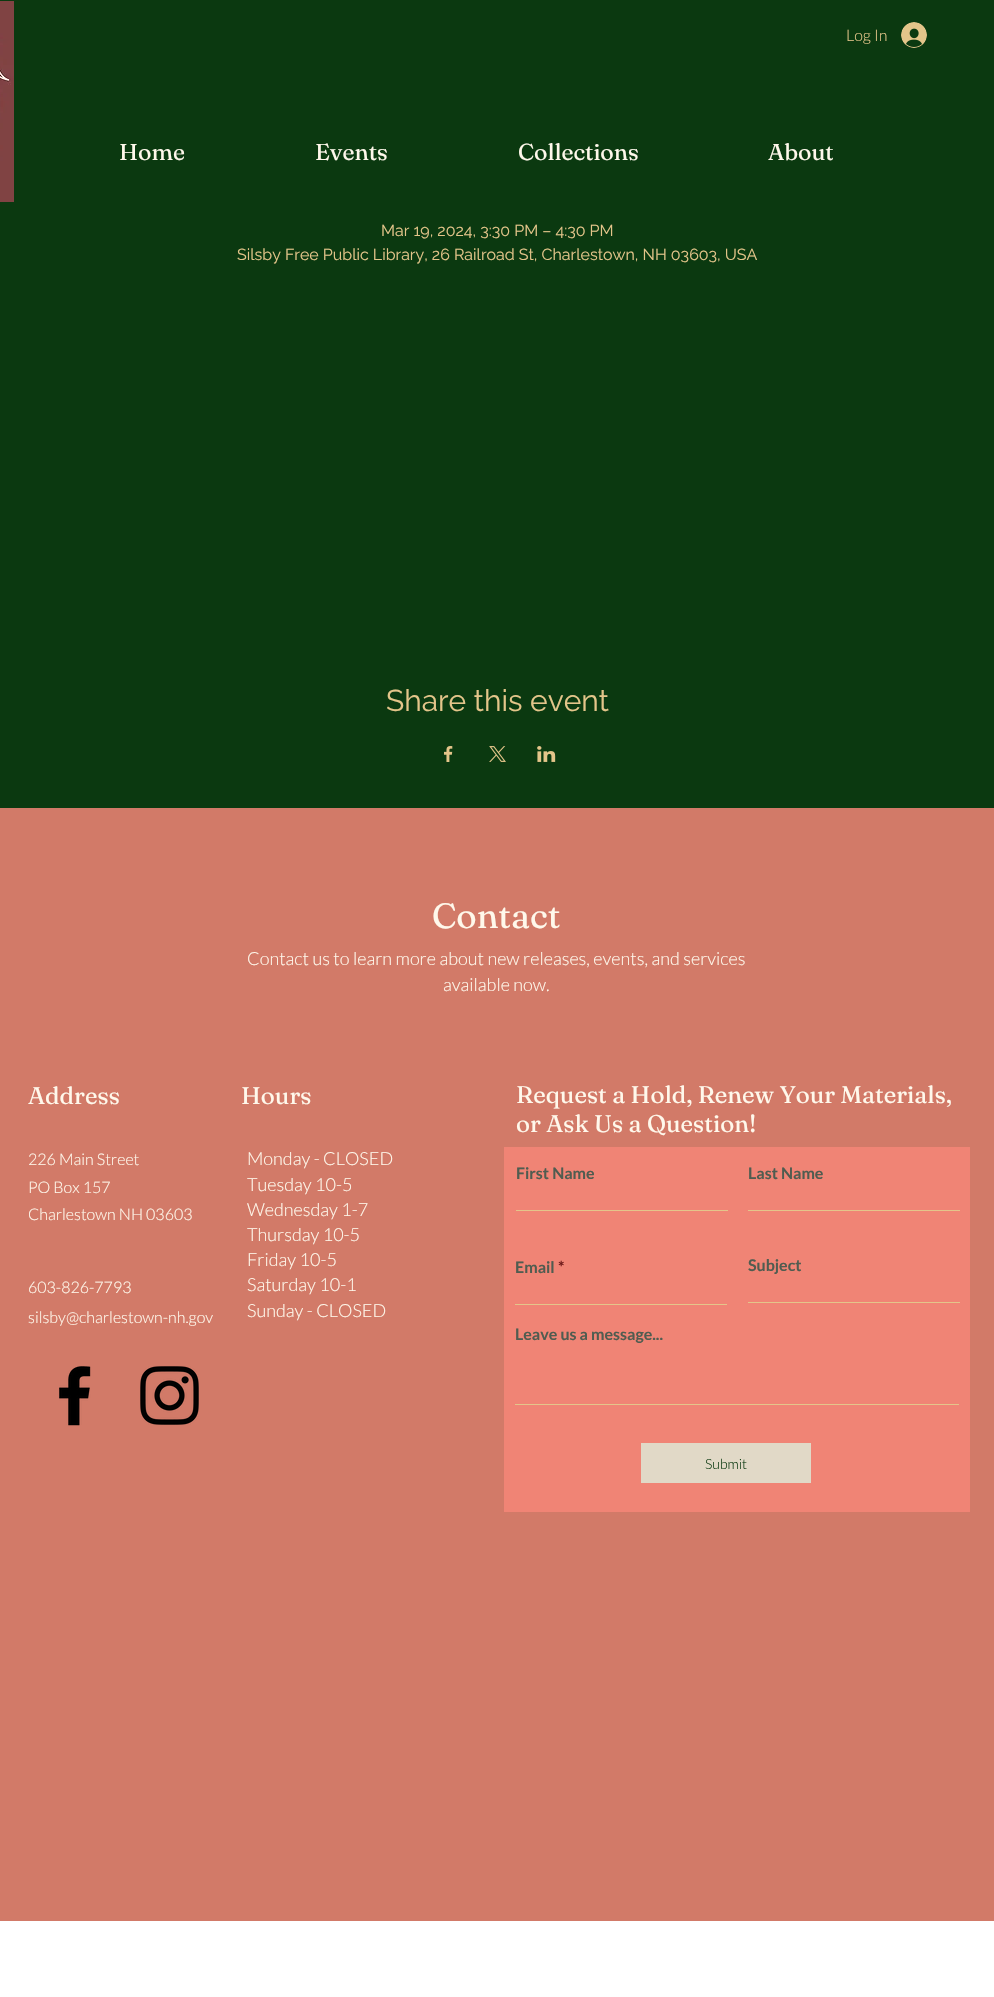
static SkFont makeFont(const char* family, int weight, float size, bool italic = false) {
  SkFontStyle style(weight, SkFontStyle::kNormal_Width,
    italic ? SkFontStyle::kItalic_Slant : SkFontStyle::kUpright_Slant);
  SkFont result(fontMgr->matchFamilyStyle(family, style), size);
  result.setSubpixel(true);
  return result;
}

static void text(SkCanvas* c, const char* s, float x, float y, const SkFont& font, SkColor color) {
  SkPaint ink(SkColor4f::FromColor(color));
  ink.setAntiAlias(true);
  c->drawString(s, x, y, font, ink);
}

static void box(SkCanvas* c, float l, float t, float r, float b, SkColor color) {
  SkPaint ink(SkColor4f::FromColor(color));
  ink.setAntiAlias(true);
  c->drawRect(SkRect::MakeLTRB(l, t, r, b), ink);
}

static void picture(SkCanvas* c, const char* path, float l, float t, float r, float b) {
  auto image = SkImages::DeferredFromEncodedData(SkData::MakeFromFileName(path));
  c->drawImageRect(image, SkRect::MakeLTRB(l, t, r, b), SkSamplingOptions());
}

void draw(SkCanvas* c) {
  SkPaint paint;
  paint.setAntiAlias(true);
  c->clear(0xffffffff);
  box(c, 0, 0, 994, 808, 0xff0b3910);
  picture(c, "img_01.png", 0, 1, 14, 202);
  SkFont face1 = makeFont("Lato", 300, 16);
  text(c, "Log In", 846, 41, face1, 0xffe4c58a);
  picture(c, "img_02.png", 901, 22, 927, 48);
  SkFont face2 = makeFont("Fraunces", 400, 23);
  text(c, "Home", 119, 160, face2, 0xfffff8eb);
  text(c, "Events", 315, 160, face2, 0xfffff8eb);
  text(c, "Collections", 518, 160, face2, 0xfffff8eb);
  text(c, "About", 768, 160, face2, 0xfffff8eb);
  SkFont face3 = makeFont("Raleway", 400, 16);
  text(c, "Mar 19, 2024, 3:30 PM – 4:30 PM", 381, 236, face3, 0xffe4c58a);
  text(c, "Silsby Free Public Library, 26 Railroad St, Charlestown, NH 03603, USA", 237, 260, face3, 0xffe4c58a);
  SkFont face4 = makeFont("Raleway", 400, 30);
  text(c, "Share this event", 386, 711, face4, 0xffe4c58a);
  picture(c, "img_03.png", 444, 746, 453, 762);
  picture(c, "img_04.png", 489, 746, 506, 762);
  picture(c, "img_05.png", 537, 746, 556, 762);
  box(c, 0, 808, 994, 1921, 0xffd27a68);
  SkFont face5 = makeFont("Fraunces", 400, 35);
  text(c, "Contact", 432, 928, face5, 0xfffff8eb);
  SkFont face6 = makeFont("Lato", 300, 18);
  text(c, "Contact us to learn more about new releases, events, and services", 247, 965, face6, 0xfffff8eb);
  text(c, "available now.", 443, 991, face6, 0xfffff8eb);
  SkFont face7 = makeFont("Fraunces", 400, 24);
  text(c, "Address", 28, 1104, face7, 0xfffff8eb);
  text(c, "226 Main Street", 28, 1165, face1, 0xfffff8eb);
  text(c, "PO Box 157", 28, 1193, face1, 0xfffff8eb);
  text(c, "Charlestown NH 03603", 28, 1220, face1, 0xfffff8eb);
  text(c, "603-826-7793", 28, 1293, face1, 0xfffff8eb);
  text(c, "silsby@charlestown-nh.gov", 28, 1323, face1, 0xfffff8eb);
  text(c, "Hours", 241, 1104, face7, 0xfffff8eb);
  text(c, "Monday - CLOSED", 247, 1165, face6, 0xfffff8eb);
  text(c, "Tuesday 10-5", 247, 1191, face6, 0xfffff8eb);
  text(c, "Wednesday 1-7", 247, 1216, face6, 0xfffff8eb);
  text(c, "Thursday 10-5", 247, 1241, face6, 0xfffff8eb);
  text(c, "Friday 10-5", 247, 1266, face6, 0xfffff8eb);
  text(c, "Saturday 10-1", 247, 1291, face6, 0xfffff8eb);
  text(c, "Sunday - CLOSED", 247, 1317, face6, 0xfffff8eb);
  text(c, "Request a Hold, Renew Your Materials,", 516, 1103, face7, 0xfffff8eb);
  text(c, "or Ask Us a Question!", 516, 1132, face7, 0xfffff8eb);
  box(c, 504, 1147, 970, 1512, 0xfff08475);
  SkFont face8 = makeFont("Lato", 700, 16);
  text(c, "First Name", 516, 1179, face8, 0xff505c50);
  box(c, 516, 1210, 728, 1211, 0xffe4c58a);
  text(c, "Last Name", 748, 1179, face8, 0xff505c50);
  box(c, 748, 1210, 960, 1211, 0xffe4c58a);
  text(c, "Email", 515, 1273, face8, 0xff505c50);
  text(c, "*", 558, 1273, face8, 0xff6e1919);
  box(c, 515, 1304, 727, 1305, 0xffe4c58a);
  text(c, "Subject", 748, 1271, face8, 0xff505c50);
  box(c, 748, 1302, 960, 1303, 0xffe4c58a);
  text(c, "Leave us a message...", 515, 1340, face8, 0xff505c50);
  box(c, 515, 1404, 959, 1405, 0xffe4c58a);
  box(c, 641, 1443, 811, 1483, 0xffe1d9c7);
  SkFont face9 = makeFont("Lato", 300, 14);
  text(c, "Submit", 705, 1469, face9, 0xff0b3910);
  picture(c, "img_06.png", 59, 1366, 91, 1426);
  picture(c, "img_07.png", 140, 1366, 199, 1425);
}
